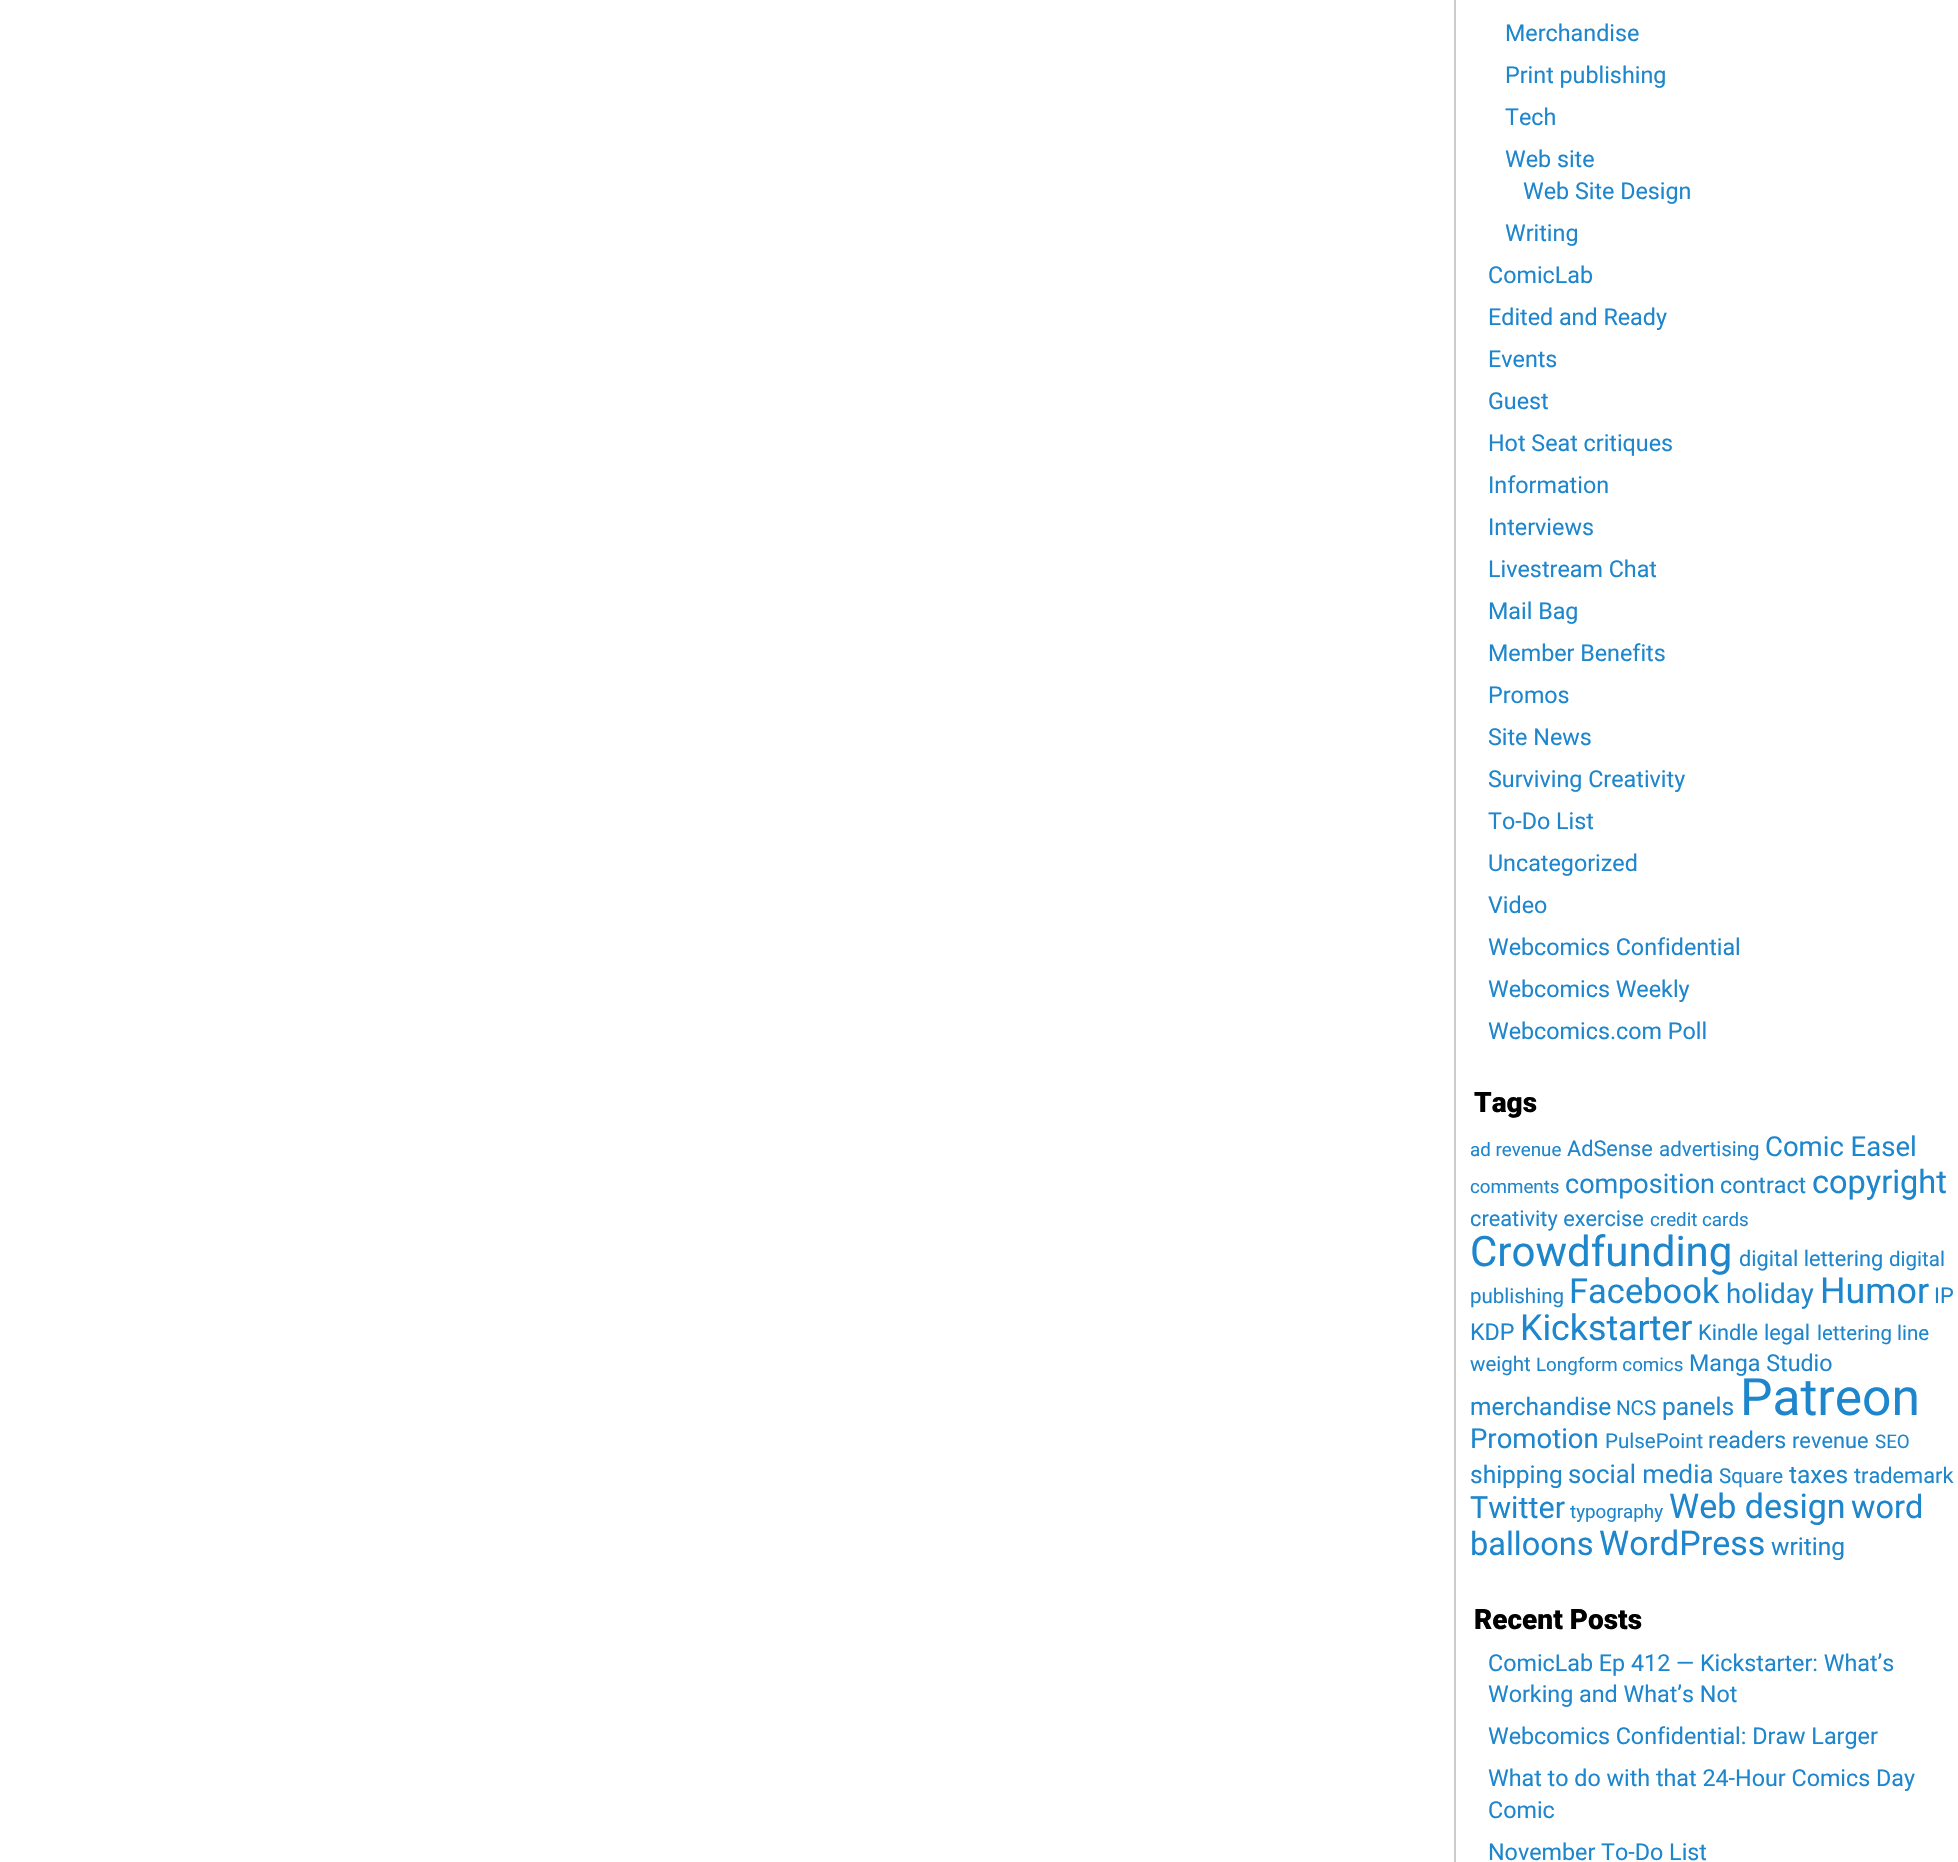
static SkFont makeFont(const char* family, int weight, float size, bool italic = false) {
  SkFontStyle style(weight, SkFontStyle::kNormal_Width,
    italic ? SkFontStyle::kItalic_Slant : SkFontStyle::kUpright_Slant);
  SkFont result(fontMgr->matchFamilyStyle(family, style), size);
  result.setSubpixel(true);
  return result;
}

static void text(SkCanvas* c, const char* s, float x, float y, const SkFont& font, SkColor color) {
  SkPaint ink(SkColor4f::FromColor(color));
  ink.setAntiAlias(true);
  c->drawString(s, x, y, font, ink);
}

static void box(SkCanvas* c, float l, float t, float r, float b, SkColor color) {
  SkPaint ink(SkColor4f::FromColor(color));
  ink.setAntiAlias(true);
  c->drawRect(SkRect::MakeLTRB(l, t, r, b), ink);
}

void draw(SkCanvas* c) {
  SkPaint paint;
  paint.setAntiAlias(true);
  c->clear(0xffffffff);
  box(c, 1454, 0, 1456, 1862, 0xffcccccc);
  SkFont face1 = makeFont("Roboto", 400, 23.3f);
  text(c, "Merchandise", 1505, 41, face1, 0xff1e86cc);
  text(c, "Print publishing", 1505, 83, face1, 0xff1e86cc);
  text(c, "Tech", 1505, 125, face1, 0xff1e86cc);
  text(c, "Web site", 1505, 167, face1, 0xff1e86cc);
  text(c, "Web Site Design", 1523, 199, face1, 0xff1e86cc);
  text(c, "Writing", 1505, 241, face1, 0xff1e86cc);
  text(c, "ComicLab", 1488, 283, face1, 0xff1e86cc);
  text(c, "Edited and Ready", 1488, 325, face1, 0xff1e86cc);
  text(c, "Events", 1488, 367, face1, 0xff1e86cc);
  text(c, "Guest", 1488, 409, face1, 0xff1e86cc);
  text(c, "Hot Seat critiques", 1488, 451, face1, 0xff1e86cc);
  text(c, "Information", 1488, 493, face1, 0xff1e86cc);
  text(c, "Interviews", 1488, 535, face1, 0xff1e86cc);
  text(c, "Livestream Chat", 1488, 577, face1, 0xff1e86cc);
  text(c, "Mail Bag", 1488, 619, face1, 0xff1e86cc);
  text(c, "Member Benefits", 1488, 661, face1, 0xff1e86cc);
  text(c, "Promos", 1488, 703, face1, 0xff1e86cc);
  text(c, "Site News", 1488, 745, face1, 0xff1e86cc);
  text(c, "Surviving Creativity", 1488, 787, face1, 0xff1e86cc);
  text(c, "To-Do List", 1488, 829, face1, 0xff1e86cc);
  text(c, "Uncategorized", 1488, 871, face1, 0xff1e86cc);
  text(c, "Video", 1488, 913, face1, 0xff1e86cc);
  text(c, "Webcomics Confidential", 1488, 955, face1, 0xff1e86cc);
  text(c, "Webcomics Weekly", 1488, 997, face1, 0xff1e86cc);
  text(c, "Webcomics.com Poll", 1488, 1039, face1, 0xff1e86cc);
  SkFont face2 = makeFont("Roboto", 900, 28);
  text(c, "Tags", 1474, 1112, face2, 0xff000000);
  SkFont face3 = makeFont("Roboto", 400, 18.75f);
  text(c, "ad revenue", 1470, 1156, face3, 0xff1e86cc);
  SkFont face4 = makeFont("Roboto", 400, 21.75f);
  text(c, "AdSense", 1567, 1156, face4, 0xff1e86cc);
  SkFont face5 = makeFont("Roboto", 400, 20.5f);
  text(c, "advertising", 1659, 1156, face5, 0xff1e86cc);
  SkFont face6 = makeFont("Roboto", 400, 27.5f);
  text(c, "Comic Easel", 1765, 1156, face6, 0xff1e86cc);
  text(c, "comments", 1470, 1193, face3, 0xff1e86cc);
  SkFont face7 = makeFont("Roboto", 400, 27);
  text(c, "composition", 1565, 1193, face7, 0xff1e86cc);
  SkFont face8 = makeFont("Roboto", 400, 23.25f);
  text(c, "contract", 1720, 1193, face8, 0xff1e86cc);
  SkFont face9 = makeFont("Roboto", 400, 32.5f);
  text(c, "copyright", 1812, 1193, face9, 0xff1e86cc);
  text(c, "creativity exercise", 1470, 1226, face4, 0xff1e86cc);
  text(c, "credit cards", 1650, 1226, face3, 0xff1e86cc);
  SkFont face10 = makeFont("Roboto", 400, 42);
  text(c, "Crowdfunding", 1470, 1266, face10, 0xff1e86cc);
  text(c, "digital lettering", 1739, 1266, face4, 0xff1e86cc);
  text(c, "digital", 1889, 1266, face5, 0xff1e86cc);
  text(c, "publishing", 1470, 1303, face5, 0xff1e86cc);
  SkFont face11 = makeFont("Roboto", 400, 34.5f);
  text(c, "Facebook", 1569, 1303, face11, 0xff1e86cc);
  text(c, "holiday", 1726, 1303, face6, 0xff1e86cc);
  SkFont face12 = makeFont("Roboto", 400, 35.75f);
  text(c, "Humor", 1820, 1303, face12, 0xff1e86cc);
  text(c, "IP", 1934, 1303, face4, 0xff1e86cc);
  text(c, "KDP", 1470, 1340, face8, 0xff1e86cc);
  text(c, "Kickstarter", 1520, 1340, face12, 0xff1e86cc);
  text(c, "Kindle", 1698, 1340, face4, 0xff1e86cc);
  text(c, "legal", 1764, 1340, face4, 0xff1e86cc);
  text(c, "lettering", 1817, 1340, face5, 0xff1e86cc);
  text(c, "line", 1897, 1340, face5, 0xff1e86cc);
  text(c, "weight", 1470, 1371, face5, 0xff1e86cc);
  text(c, "Longform comics", 1536, 1371, face3, 0xff1e86cc);
  text(c, "Manga Studio", 1689, 1371, face8, 0xff1e86cc);
  SkFont face13 = makeFont("Roboto", 400, 24.5f);
  text(c, "merchandise", 1470, 1415, face13, 0xff1e86cc);
  text(c, "NCS", 1616, 1415, face5, 0xff1e86cc);
  text(c, "panels", 1662, 1415, face13, 0xff1e86cc);
  SkFont face14 = makeFont("Roboto", 400, 51.5f);
  text(c, "Patreon", 1740, 1415, face14, 0xff1e86cc);
  text(c, "Promotion", 1470, 1448, face6, 0xff1e86cc);
  text(c, "PulsePoint", 1605, 1448, face5, 0xff1e86cc);
  text(c, "readers", 1708, 1448, face8, 0xff1e86cc);
  text(c, "revenue", 1792, 1448, face4, 0xff1e86cc);
  text(c, "SEO", 1875, 1448, face3, 0xff1e86cc);
  text(c, "shipping", 1470, 1483, face13, 0xff1e86cc);
  SkFont face15 = makeFont("Roboto", 400, 25.75f);
  text(c, "social media", 1568, 1483, face15, 0xff1e86cc);
  text(c, "Square", 1719, 1483, face5, 0xff1e86cc);
  text(c, "taxes", 1789, 1483, face13, 0xff1e86cc);
  text(c, "trademark", 1854, 1483, face4, 0xff1e86cc);
  SkFont face16 = makeFont("Roboto", 400, 30.5f);
  text(c, "Twitter", 1470, 1518, face16, 0xff1e86cc);
  text(c, "typography", 1570, 1518, face3, 0xff1e86cc);
  SkFont face17 = makeFont("Roboto", 400, 34);
  text(c, "Web design", 1669, 1518, face17, 0xff1e86cc);
  text(c, "word", 1851, 1518, face9, 0xff1e86cc);
  text(c, "balloons", 1470, 1555, face9, 0xff1e86cc);
  text(c, "WordPress", 1599, 1555, face17, 0xff1e86cc);
  text(c, "writing", 1771, 1555, face13, 0xff1e86cc);
  text(c, "Recent Posts", 1474, 1629, face2, 0xff000000);
  text(c, "ComicLab Ep 412 — Kickstarter: What’s", 1488, 1671, face1, 0xff1e86cc);
  text(c, "Working and What’s Not", 1488, 1702, face1, 0xff1e86cc);
  text(c, "Webcomics Confidential: Draw Larger", 1488, 1744, face1, 0xff1e86cc);
  text(c, "What to do with that 24-Hour Comics Day", 1488, 1786, face1, 0xff1e86cc);
  text(c, "Comic", 1488, 1818, face1, 0xff1e86cc);
  text(c, "November To-Do List", 1488, 1860, face1, 0xff1e86cc);
}
